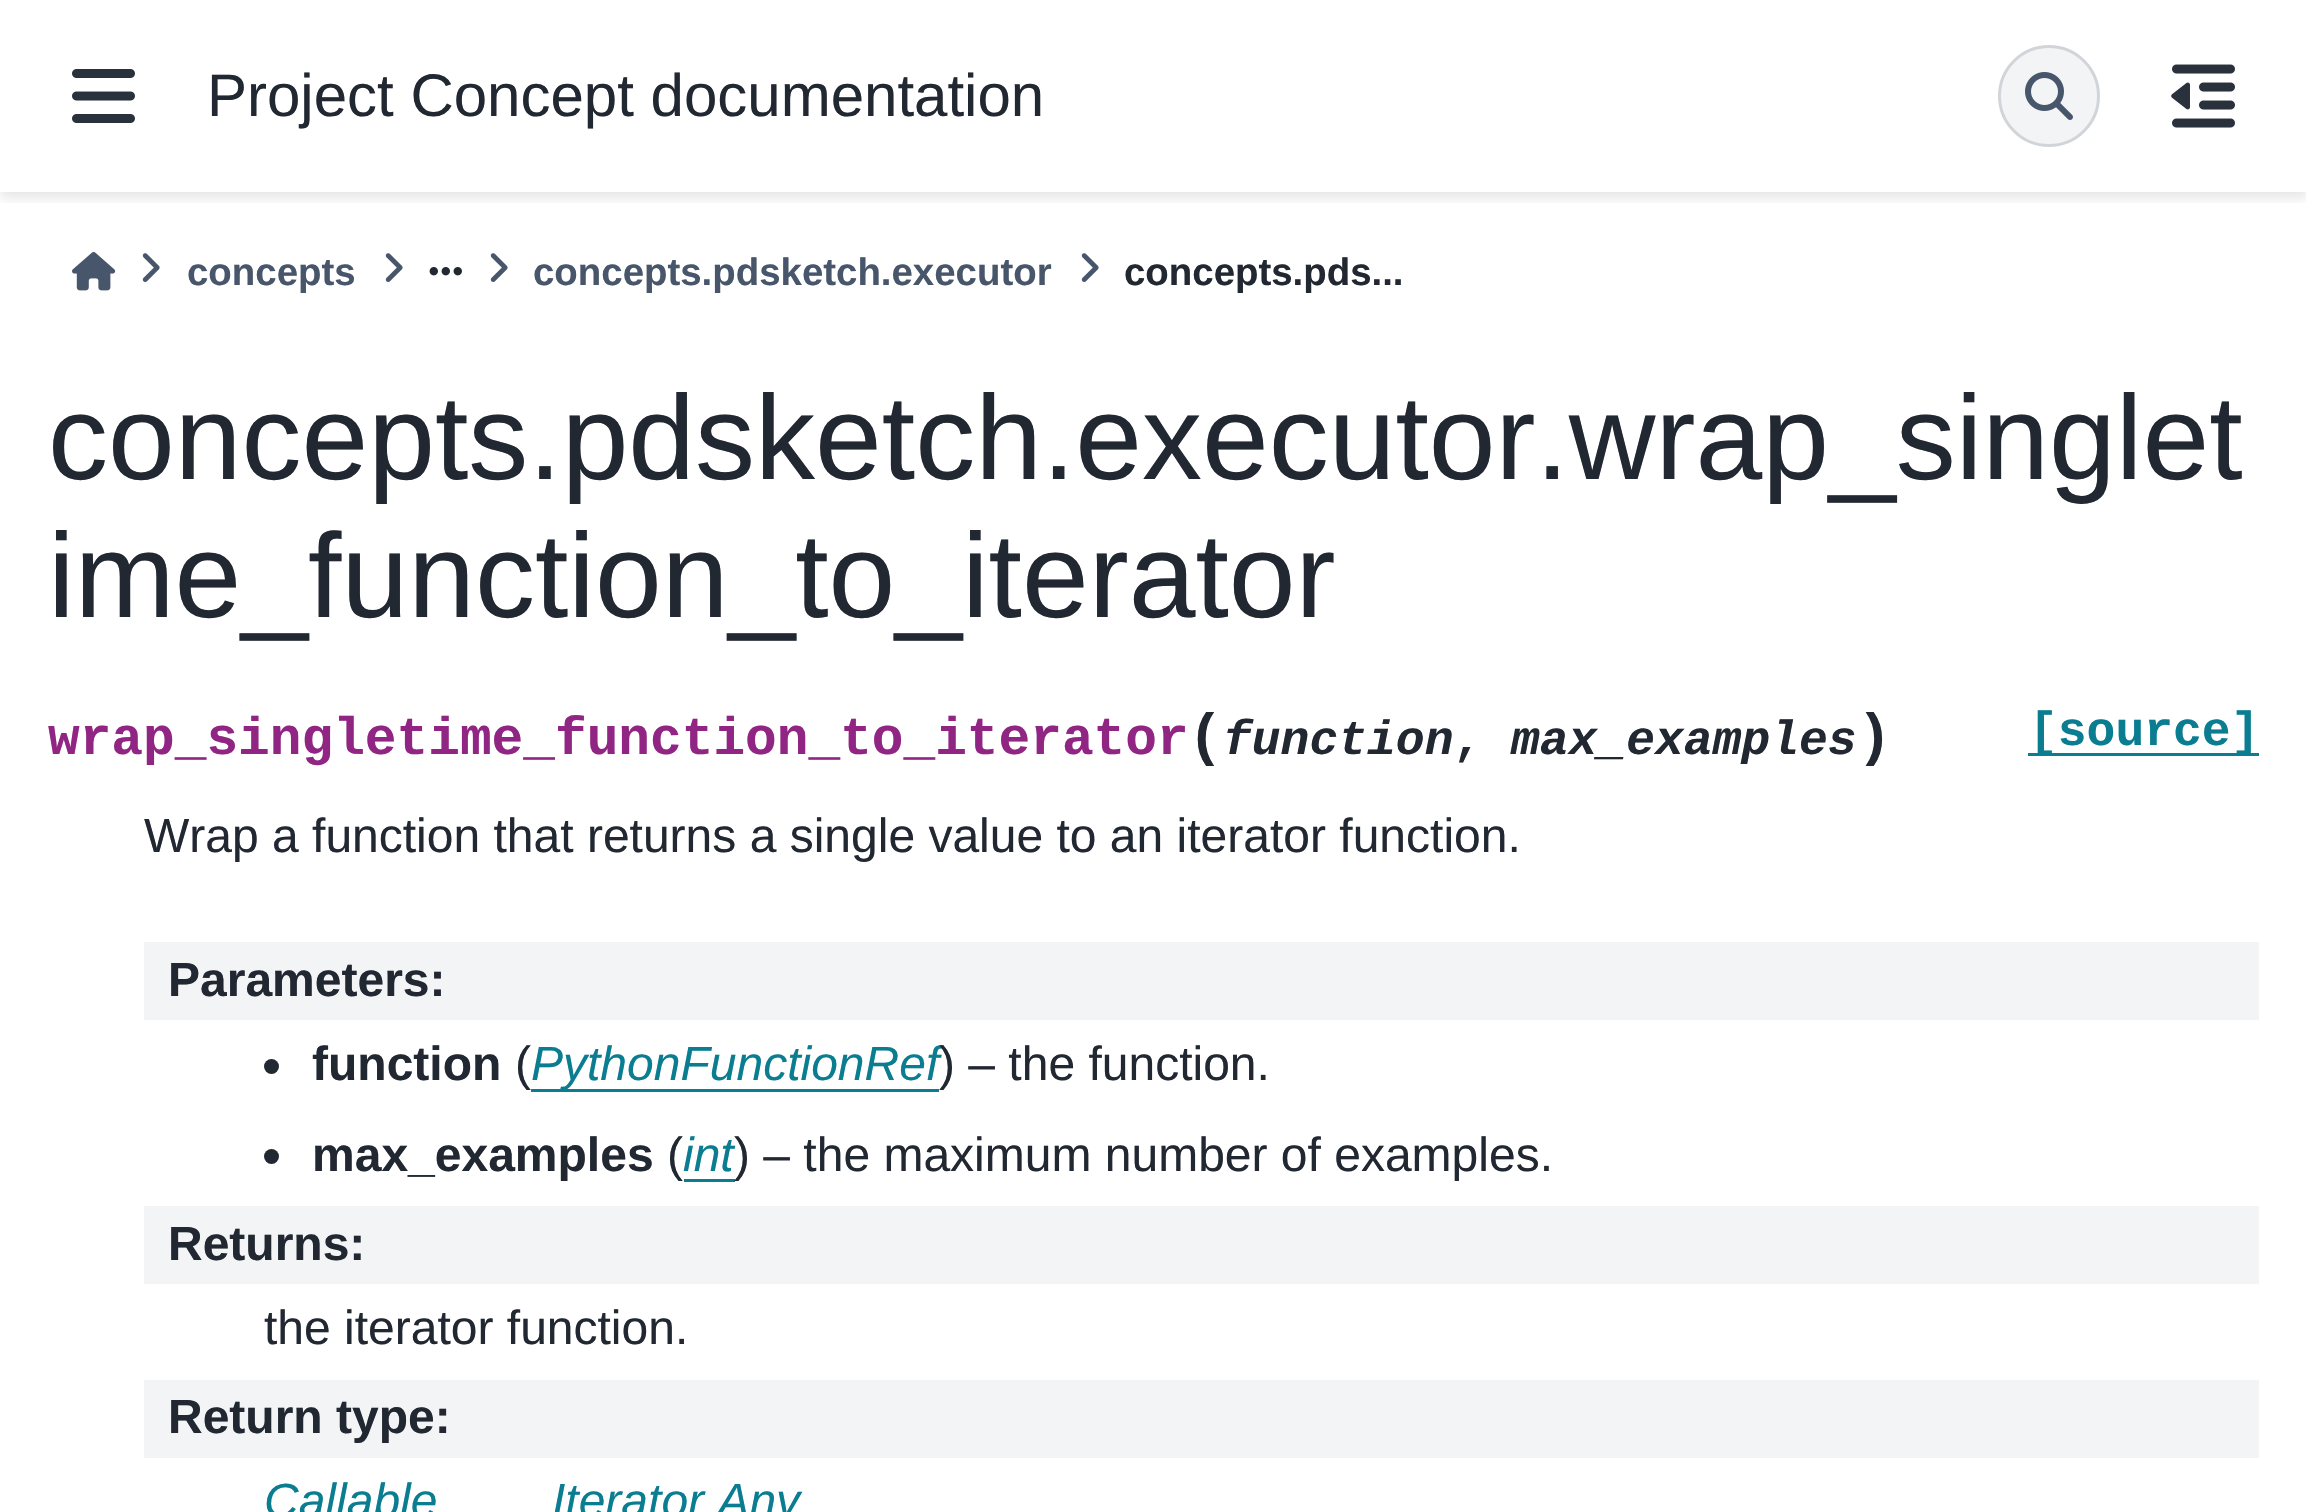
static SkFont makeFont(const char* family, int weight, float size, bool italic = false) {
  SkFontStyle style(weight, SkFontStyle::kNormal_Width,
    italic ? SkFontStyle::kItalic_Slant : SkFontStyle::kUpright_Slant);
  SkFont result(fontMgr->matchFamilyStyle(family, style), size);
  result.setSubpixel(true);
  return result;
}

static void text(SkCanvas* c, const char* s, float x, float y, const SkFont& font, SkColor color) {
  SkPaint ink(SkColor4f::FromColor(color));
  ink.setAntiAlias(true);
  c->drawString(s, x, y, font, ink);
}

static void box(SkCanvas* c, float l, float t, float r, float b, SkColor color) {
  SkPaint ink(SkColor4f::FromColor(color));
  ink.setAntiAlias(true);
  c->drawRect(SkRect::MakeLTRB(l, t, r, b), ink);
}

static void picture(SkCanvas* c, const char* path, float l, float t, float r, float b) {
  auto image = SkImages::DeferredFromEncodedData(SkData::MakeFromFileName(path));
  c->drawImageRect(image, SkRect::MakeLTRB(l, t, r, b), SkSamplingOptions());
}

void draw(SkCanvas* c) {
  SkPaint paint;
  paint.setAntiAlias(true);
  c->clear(0xffffffff);
  c->save();
  c->clipRect(SkRect::MakeLTRB(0, 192, 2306, 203));
  paint.setColor(0x1a000000);
  paint.setMaskFilter(SkMaskFilter::MakeBlur(kNormal_SkBlurStyle, 6));
  c->drawRect(SkRect::MakeLTRB(0, 6, 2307, 198), paint);
  paint.setMaskFilter(nullptr);
  c->restore();
  picture(c, "img_01.png", 72, 69, 135, 123);
  SkFont face1 = makeFont("Liberation Sans", 400, 60);
  text(c, "Project Concept documentation", 207, 116, face1, 0xff222832);
  paint.setColor(0xfff3f4f5);
  c->drawCircle(2049, 96, 49.5f, paint);
  paint.setStyle(SkPaint::kStroke_Style);
  paint.setStrokeWidth(3);
  paint.setColor(0xffd1d5da);
  c->drawCircle(2049, 96, 49.5f, paint);
  picture(c, "img_02.png", 2025, 72, 2073, 120);
  picture(c, "img_03.png", 2171, 64, 2235, 128);
  picture(c, "img_04.png", 72, 252, 116, 291);
  picture(c, "img_05.png", 142, 253, 160, 282);
  SkFont face2 = makeFont("Liberation Sans", 700, 38.4f);
  text(c, "concepts", 187, 285, face2, 0xff48566b);
  picture(c, "img_05.png", 385, 253, 403, 282);
  picture(c, "img_06.png", 429, 267, 462, 276);
  picture(c, "img_05.png", 490, 253, 508, 282);
  text(c, "concepts.pdsketch.executor", 533, 285, face2, 0xff48566b);
  picture(c, "img_05.png", 1081, 253, 1099, 282);
  text(c, "concepts.pds...", 1124, 285, face2, 0xff222832);
  SkFont face3 = makeFont("Liberation Sans", 400, 120);
  text(c, "concepts.pdsketch.executor.wrap_singlet", 48, 479, face3, 0xff222832);
  text(c, "ime_function_to_iterator", 48, 617, face3, 0xff222832);
  SkFont face4 = makeFont("Liberation Mono", 700, 52.8f);
  text(c, "wrap_singletime_function_to_iterator", 48, 754, face4, 0xff912583);
  SkFont face5 = makeFont("Liberation Mono", 700, 58);
  text(c, "(", 1188, 754, face5, 0xff222832);
  SkFont face6 = makeFont("Liberation Mono", 700, 48, true);
  text(c, "function", 1223, 754, face6, 0xff222832);
  SkFont face7 = makeFont("Liberation Mono", 700, 48);
  text(c, ",", 1453, 754, face7, 0xff222832);
  text(c, "max_examples", 1511, 754, face6, 0xff222832);
  text(c, ")", 1857, 754, face5, 0xff222832);
  box(c, 2028, 753, 2259, 756, 0xff0a7d91);
  text(c, "[source]", 2029, 745, face7, 0xff0a7d91);
  SkFont face8 = makeFont("Liberation Sans", 400, 48);
  text(c, "Wrap a function that returns a single value to an iterator function.", 144, 852, face8, 0xff222832);
  box(c, 144, 942, 2259, 1020, 0xfff3f4f5);
  SkFont face9 = makeFont("Liberation Sans", 700, 48);
  text(c, "Parameters:", 168, 996, face9, 0xff222832);
  paint.setStyle(SkPaint::kFill_Style);
  paint.setColor(0xff222832);
  c->drawCircle(271.5f, 1066.5f, 7.5f, paint);
  text(c, "function", 312, 1080, face9, 0xff222832);
  text(c, "(", 515, 1080, face8, 0xff222832);
  box(c, 531, 1089, 939, 1092, 0xff0a7d91);
  SkFont face10 = makeFont("Liberation Sans", 400, 48, true);
  text(c, "PythonFunctionRef", 531, 1080, face10, 0xff0a7d91);
  text(c, ") – the function.", 939, 1080, face8, 0xff222832);
  c->drawCircle(271.5f, 1156.5f, 7.5f, paint);
  text(c, "max_examples", 312, 1171, face9, 0xff222832);
  text(c, "(", 667, 1171, face8, 0xff222832);
  text(c, "int", 683, 1171, face10, 0xff0a7d91);
  box(c, 684, 1179, 735, 1182, 0xff0a7d91);
  text(c, ") – the maximum number of examples.", 734, 1171, face8, 0xff222832);
  box(c, 144, 1206, 2259, 1284, 0xfff3f4f5);
  text(c, "Returns:", 168, 1260, face9, 0xff222832);
  text(c, "the iterator function.", 264, 1344, face8, 0xff222832);
  box(c, 144, 1380, 2259, 1458, 0xfff3f4f5);
  text(c, "Return type:", 168, 1433, face9, 0xff222832);
  text(c, "Callable", 264, 1517, face10, 0xff0a7d91);
  text(c, "Iterator Any", 552, 1517, face10, 0xff0a7d91);
}
